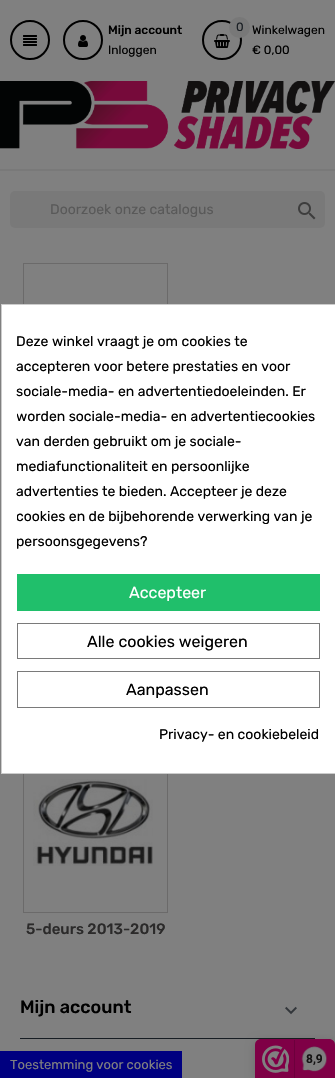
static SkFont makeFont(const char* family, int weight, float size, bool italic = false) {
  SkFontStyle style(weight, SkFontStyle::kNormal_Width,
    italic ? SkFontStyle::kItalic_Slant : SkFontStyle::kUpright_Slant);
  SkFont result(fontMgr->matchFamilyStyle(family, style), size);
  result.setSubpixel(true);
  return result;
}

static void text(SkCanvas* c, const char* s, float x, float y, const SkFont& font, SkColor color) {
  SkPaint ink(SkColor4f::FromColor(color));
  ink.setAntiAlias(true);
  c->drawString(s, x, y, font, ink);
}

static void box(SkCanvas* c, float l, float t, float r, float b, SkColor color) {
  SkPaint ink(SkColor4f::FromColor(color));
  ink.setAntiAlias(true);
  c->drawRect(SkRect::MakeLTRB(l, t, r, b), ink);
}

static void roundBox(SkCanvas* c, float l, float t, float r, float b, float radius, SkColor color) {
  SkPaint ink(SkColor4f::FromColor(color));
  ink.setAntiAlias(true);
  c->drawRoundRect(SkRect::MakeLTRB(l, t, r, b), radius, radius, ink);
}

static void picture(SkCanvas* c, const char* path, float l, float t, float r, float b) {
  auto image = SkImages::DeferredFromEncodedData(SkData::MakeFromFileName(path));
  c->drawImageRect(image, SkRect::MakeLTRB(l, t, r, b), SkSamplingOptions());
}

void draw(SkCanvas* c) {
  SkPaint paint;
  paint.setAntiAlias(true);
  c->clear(0xff808080);
  box(c, 0, 169, 335, 171, 0xff797979);
  paint.setStyle(SkPaint::kStroke_Style);
  paint.setStrokeWidth(2);
  paint.setColor(0xff000000);
  c->drawCircle(30, 40, 19, paint);
  picture(c, "img_01.png", 23, 35, 37, 46);
  c->drawCircle(83, 40, 19, paint);
  picture(c, "img_02.png", 78, 35, 88, 47);
  SkFont face1 = makeFont("Rubik", 500, 12);
  text(c, "Mijn account", 108, 34, face1, 0xff000000);
  SkFont face2 = makeFont("Rubik", 400, 12);
  text(c, "Inloggen", 108, 54, face2, 0xff000000);
  c->drawCircle(222, 40, 19, paint);
  picture(c, "img_03.png", 214, 34, 230, 48);
  paint.setStyle(SkPaint::kFill_Style);
  paint.setColor(0xff787878);
  c->drawCircle(239.5f, 27.5f, 10.5f, paint);
  text(c, "0", 236, 31, face2, 0xff1a1f24);
  text(c, "Winkelwagen", 252, 34, face2, 0xff000000);
  text(c, "€ 0,00", 252, 54, face2, 0xff000000);
  picture(c, "img_04.png", 0, 81, 335, 149);
  roundBox(c, 10, 191, 325, 228, 5, 0xff797979);
  SkFont face3 = makeFont("Rubik", 400, 14);
  text(c, "Doorzoek onze catalogus", 50, 214, face3, 0xff595959);
  picture(c, "img_05.png", 298, 202, 316, 220);
  paint.setStyle(SkPaint::kStroke_Style);
  paint.setStrokeWidth(1);
  paint.setColor(0xff6b6a6a);
  c->drawRect(SkRect::MakeLTRB(23.5f, 263.5f, 167.5f, 442.5f), paint);
  c->drawRect(SkRect::MakeLTRB(23.5f, 733.5f, 167.5f, 912.5f), paint);
  picture(c, "img_06.png", 33, 779, 153, 866);
  SkFont face4 = makeFont("Rubik", 500, 15);
  text(c, "5-deurs 2013-2019", 26, 934, face4, 0xff2b2a2a);
  box(c, 20, 1038, 315, 1039, 0xff171d23);
  SkFont face5 = makeFont("Rubik", 500, 18);
  text(c, "Mijn account", 20, 1013, face5, 0xff000000);
  picture(c, "img_07.png", 285, 1006, 297, 1015);
  paint.setStyle(SkPaint::kFill_Style);
  paint.setColor(0xffffffff);
  c->drawRect(SkRect::MakeLTRB(1.5f, 304.5f, 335.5f, 773.5f), paint);
  paint.setStyle(SkPaint::kStroke_Style);
  paint.setColor(0xffcccccc);
  c->drawRect(SkRect::MakeLTRB(1.5f, 304.5f, 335.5f, 773.5f), paint);
  text(c, "Deze winkel vraagt je om cookies te", 16, 346, face3, 0xff000000);
  text(c, "accepteren voor betere prestaties en voor", 16, 371, face3, 0xff000000);
  text(c, "sociale-media- en advertentiedoeleinden. Er", 16, 396, face3, 0xff000000);
  c->save();
  c->clipRect(SkRect::MakeLTRB(17, 329, 320, 554));
  text(c, "worden sociale-media- en advertentiecookies", 16, 421, face3, 0xff000000);
  c->restore();
  text(c, "van derden gebruikt om je sociale-", 16, 446, face3, 0xff000000);
  text(c, "mediafunctionaliteit en persoonlijke", 16, 471, face3, 0xff000000);
  text(c, "advertenties te bieden. Accepteer je deze", 16, 496, face3, 0xff000000);
  c->save();
  c->clipRect(SkRect::MakeLTRB(17, 329, 320, 554));
  text(c, "cookies en de bijbehorende verwerking van je", 16, 521, face3, 0xff000000);
  c->restore();
  text(c, "persoonsgegevens?", 16, 546, face3, 0xff000000);
  box(c, 17, 574, 320, 611, 0xff20bf6b);
  SkFont face6 = makeFont("Rubik", 400, 16);
  text(c, "Accepteer", 129, 598, face6, 0xffffffff);
  paint.setColor(0xff7a7a7a);
  c->drawRect(SkRect::MakeLTRB(17.5f, 623.5f, 319.5f, 658.5f), paint);
  text(c, "Alle cookies weigeren", 87, 647, face6, 0xff000000);
  c->drawRect(SkRect::MakeLTRB(17.5f, 671.5f, 319.5f, 707.5f), paint);
  text(c, "Aanpassen", 126, 695, face6, 0xff000000);
  text(c, "Privacy- en cookiebeleid", 159, 739, face3, 0xff000000);
  box(c, 0, 1051, 182, 1078, 0xff000080);
  SkFont face7 = makeFont("Rubik", 400, 13);
  text(c, "Toestemming voor cookies", 10, 1069, face7, 0xff808080);
  paint.setStyle(SkPaint::kFill_Style);
  paint.setColor(0x26000000);
  paint.setMaskFilter(SkMaskFilter::MakeBlur(kNormal_SkBlurStyle, 5));
  c->drawRoundRect(SkRect::MakeLTRB(255, 1041, 335, 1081), 6, 6, paint);
  paint.setMaskFilter(nullptr);
  paint.setColor(0xff7f0046);
  c->drawPath(SkPathBuilder().moveTo(261, 1039).lineTo(329, 1039).cubicTo(332.5f, 1039, 335, 1041.5f, 335, 1045).lineTo(335, 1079).lineTo(255, 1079).lineTo(255, 1045).cubicTo(255, 1041.5f, 257.5f, 1039, 261, 1039).close().detach(), paint);
  picture(c, "img_08.png", 262, 1045, 289, 1073);
  box(c, 294, 1040, 295, 1078, 0xff6c003c);
  picture(c, "img_09.png", 301, 1046, 327, 1072);
  SkFont face8 = makeFont("Roboto", 700, 12);
  text(c, "8,9", 306, 1063, face8, 0xff141313);
}
